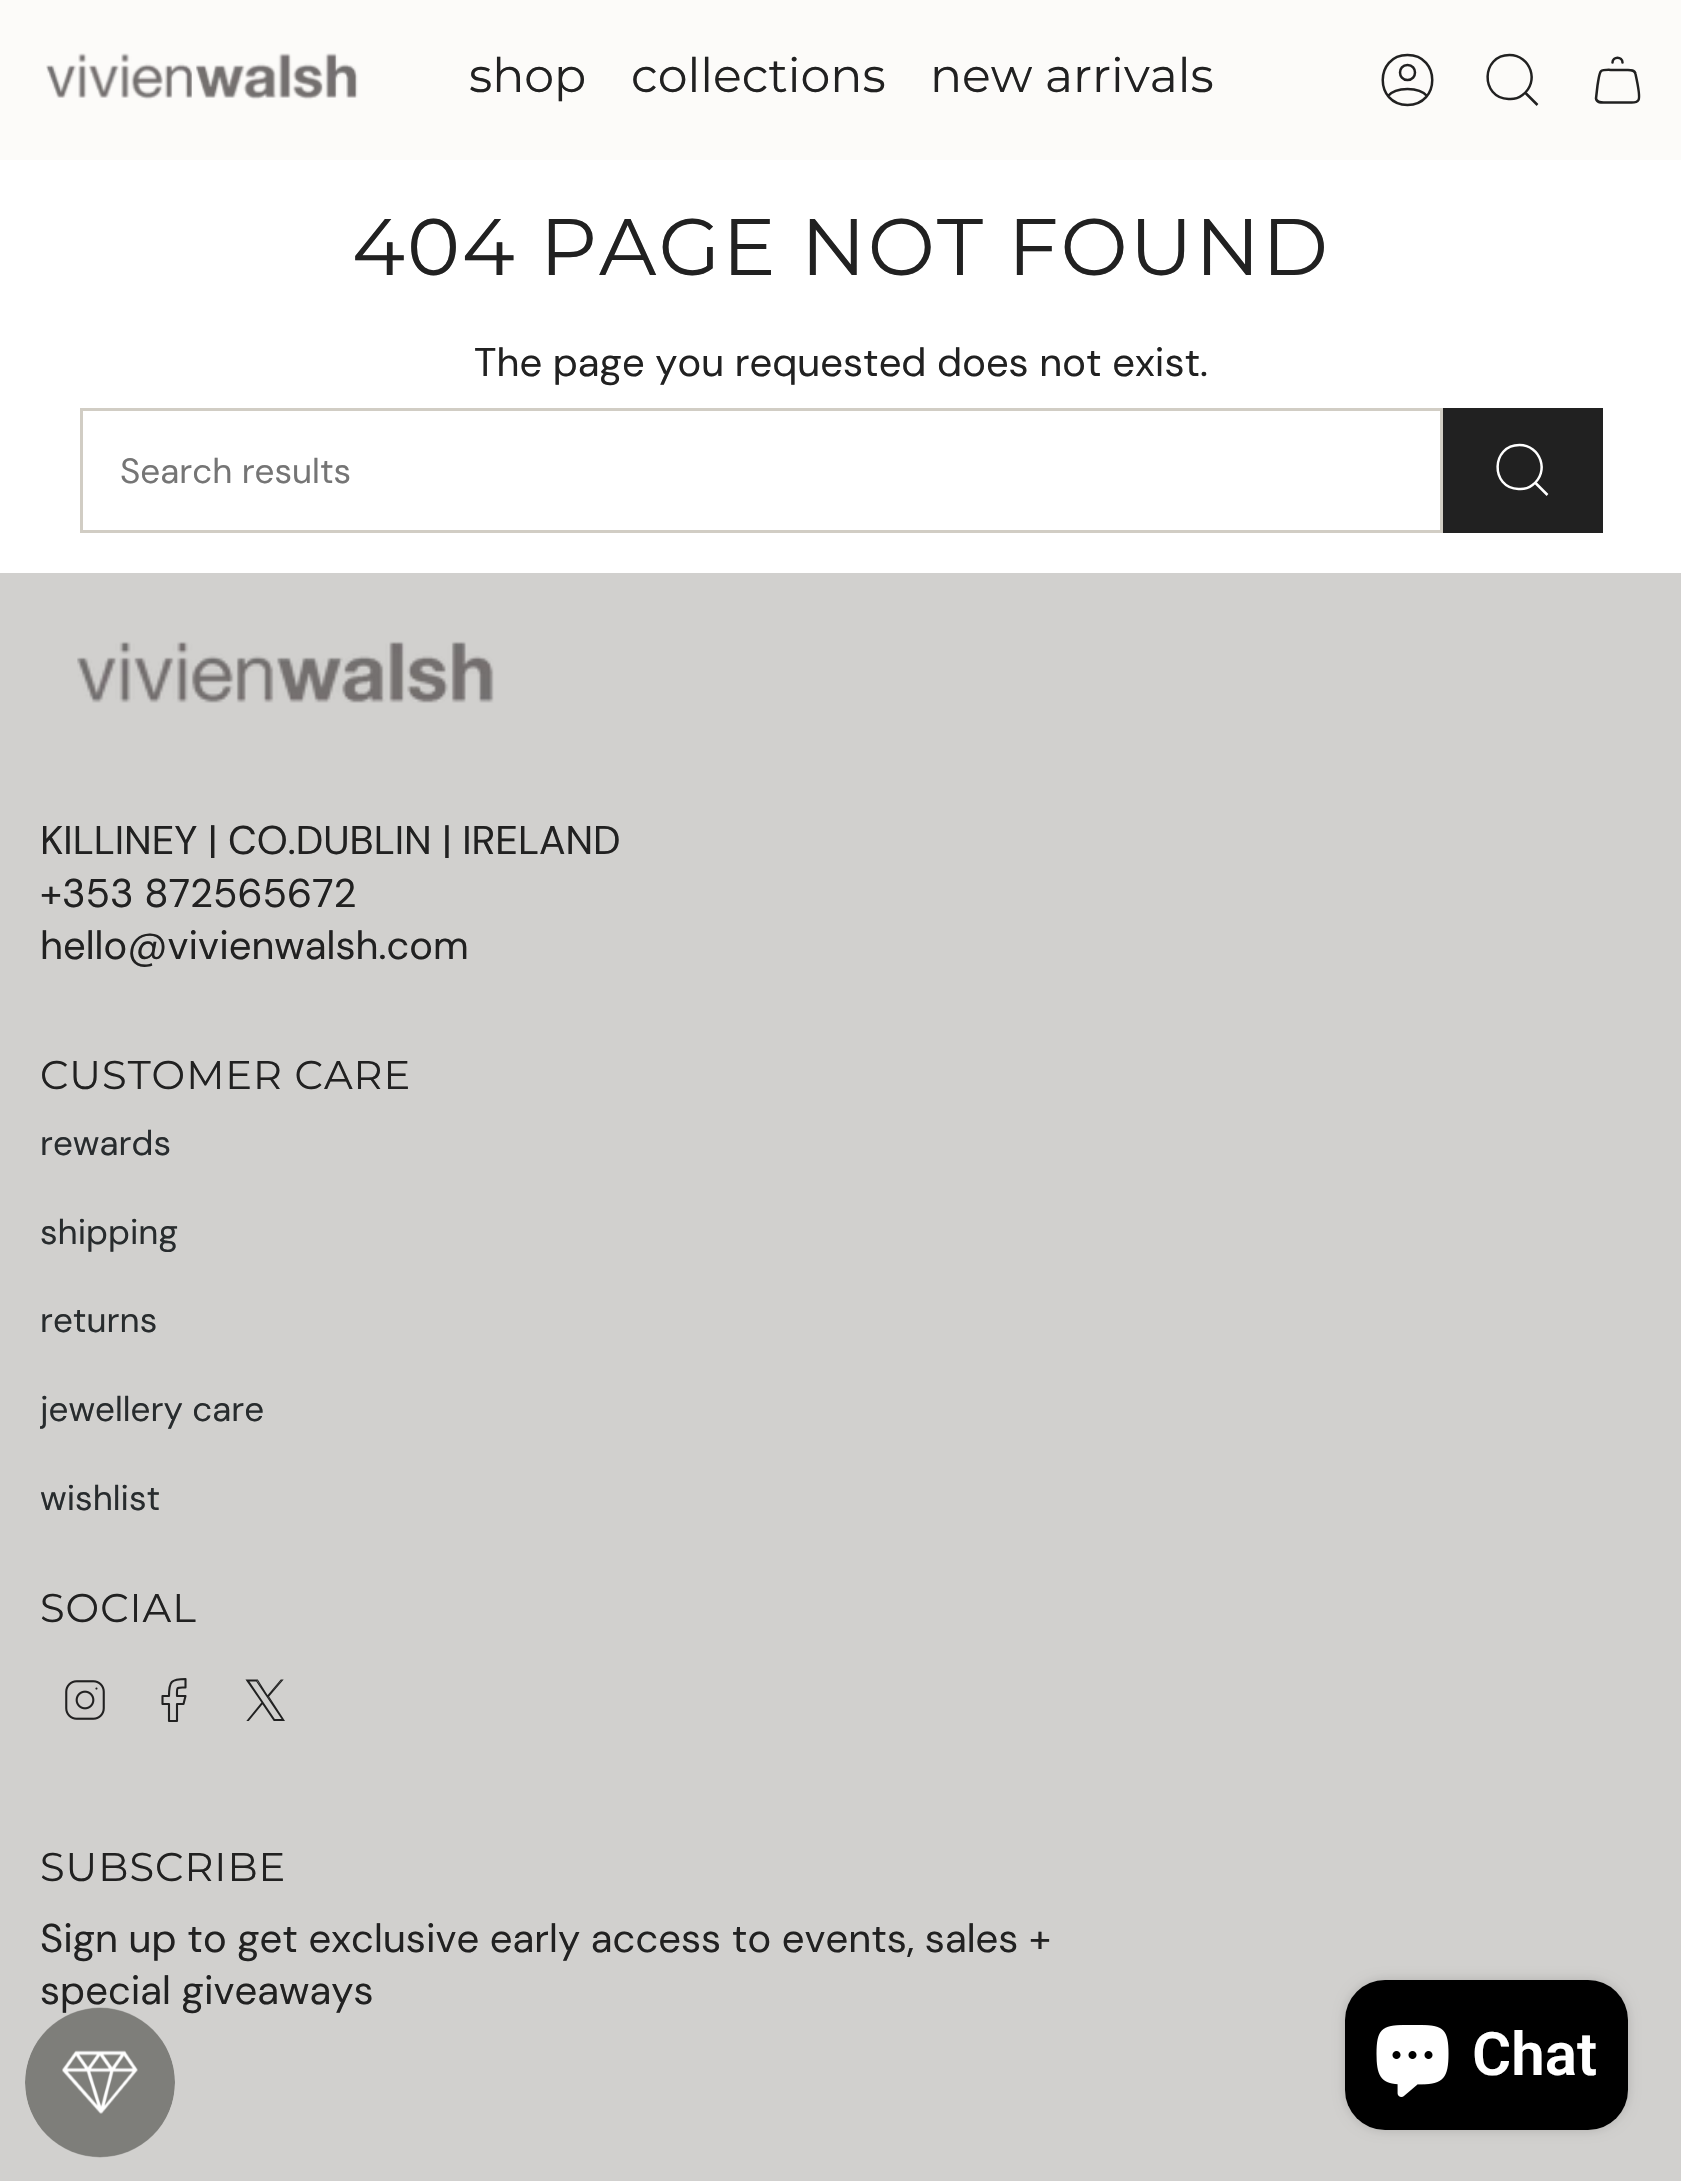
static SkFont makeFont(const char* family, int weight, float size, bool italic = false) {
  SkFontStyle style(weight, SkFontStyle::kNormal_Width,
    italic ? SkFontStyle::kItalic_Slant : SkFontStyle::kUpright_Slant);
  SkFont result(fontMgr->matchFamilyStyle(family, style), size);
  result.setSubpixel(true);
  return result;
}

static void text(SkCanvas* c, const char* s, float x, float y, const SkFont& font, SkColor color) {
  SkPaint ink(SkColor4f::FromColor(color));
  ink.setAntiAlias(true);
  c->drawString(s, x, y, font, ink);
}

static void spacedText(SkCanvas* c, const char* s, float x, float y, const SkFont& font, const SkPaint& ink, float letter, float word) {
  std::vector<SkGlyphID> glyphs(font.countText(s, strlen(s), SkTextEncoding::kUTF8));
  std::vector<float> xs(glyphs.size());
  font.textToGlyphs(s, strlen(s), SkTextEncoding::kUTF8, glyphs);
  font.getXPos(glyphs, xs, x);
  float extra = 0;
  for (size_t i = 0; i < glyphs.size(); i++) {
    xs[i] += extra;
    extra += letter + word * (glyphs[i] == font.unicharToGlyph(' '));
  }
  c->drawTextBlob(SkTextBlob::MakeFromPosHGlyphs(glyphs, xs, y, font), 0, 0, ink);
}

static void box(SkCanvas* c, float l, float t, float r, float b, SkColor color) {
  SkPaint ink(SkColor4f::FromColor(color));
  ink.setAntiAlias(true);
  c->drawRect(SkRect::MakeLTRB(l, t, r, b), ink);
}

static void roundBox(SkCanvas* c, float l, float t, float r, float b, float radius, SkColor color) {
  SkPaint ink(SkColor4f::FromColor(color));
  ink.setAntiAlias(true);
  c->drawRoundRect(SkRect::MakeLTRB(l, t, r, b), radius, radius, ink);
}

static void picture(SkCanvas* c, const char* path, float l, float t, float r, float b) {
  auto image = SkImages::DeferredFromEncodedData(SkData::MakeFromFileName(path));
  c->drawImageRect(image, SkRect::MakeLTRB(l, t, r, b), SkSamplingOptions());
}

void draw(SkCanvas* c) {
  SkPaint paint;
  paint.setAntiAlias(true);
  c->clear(0xffd1d0ce);
  box(c, 0, 0, 1681, 160, 0xfffcfbf9);
  picture(c, "img_01.png", 46, 53, 358, 100);
  SkFont face1 = makeFont("Montserrat", 400, 47.5f);
  text(c, "shop", 469, 92, face1, 0xff212121);
  text(c, "collections", 631, 92, face1, 0xff212121);
  text(c, "new arrivals", 930, 92, face1, 0xff212121);
  paint.setStyle(SkPaint::kStroke_Style);
  paint.setStrokeWidth(2.5f);
  paint.setStrokeCap(SkPaint::kRound_Cap);
  paint.setStrokeJoin(SkPaint::kRound_Join);
  paint.setColor(0xff212121);
  c->drawPath(SkPathBuilder().moveTo(1407.5f, 55).cubicTo(1374.5f, 55, 1374.5f, 105, 1407.5f, 105).cubicTo(1440.5f, 105, 1440.5f, 55, 1407.5f, 55).close().moveTo(1388, 96).cubicTo(1395.5f, 86.5f, 1419.5f, 86.5f, 1427, 96).moveTo(1407.5f, 80).cubicTo(1417.5f, 80, 1417.5f, 65, 1407.5f, 65).cubicTo(1397.5f, 65, 1397.5f, 80, 1407.5f, 80).close().detach(), paint);
  paint.setStrokeCap(SkPaint::kButt_Cap);
  paint.setStrokeJoin(SkPaint::kMiter_Join);
  c->drawPath(SkPathBuilder().moveTo(1509.5f, 55).cubicTo(1530.5f, 55, 1540, 82, 1522.5f, 95).cubicTo(1518.5f, 98, 1513.5f, 99.5f, 1508.5f, 99).cubicTo(1480, 98, 1481, 55, 1509.5f, 55).close().moveTo(1525.5f, 93).lineTo(1537.5f, 105).detach(), paint);
  paint.setStrokeCap(SkPaint::kRound_Cap);
  paint.setStrokeJoin(SkPaint::kRound_Join);
  c->drawPath(SkPathBuilder().moveTo(1635.5f, 74).cubicTo(1636.5f, 78.5f, 1640.5f, 96.5f, 1638.5f, 100).cubicTo(1636.5f, 103.5f, 1632, 102.5f, 1628.5f, 102.5f).lineTo(1606.5f, 102.5f).cubicTo(1602.5f, 102.5f, 1597, 103.5f, 1596, 98.5f).lineTo(1597.5f, 85.5f).cubicTo(1600.5f, 67, 1598.5f, 70, 1617.5f, 70).lineTo(1626.5f, 70).cubicTo(1630, 70, 1635, 69.5f, 1635.5f, 74).close().moveTo(1622.5f, 62.5f).cubicTo(1622.5f, 56, 1612.5f, 56, 1612.5f, 62.5f).detach(), paint);
  box(c, 0, 160, 1681, 573, 0xffffffff);
  SkFont face2 = makeFont("Montserrat", 400, 80);
  paint.setStyle(SkPaint::kFill_Style);
  spacedText(c, "404 PAGE NOT FOUND", 352, 275, face2, paint, 2, 0);
  SkFont face3 = makeFont("DM Sans", 400, 40);
  text(c, "The page you requested does not exist.", 474, 376, face3, 0xff212121);
  paint.setStyle(SkPaint::kStroke_Style);
  paint.setStrokeWidth(3);
  paint.setStrokeCap(SkPaint::kButt_Cap);
  paint.setStrokeJoin(SkPaint::kMiter_Join);
  paint.setColor(0xffd1cdc4);
  c->drawRect(SkRect::MakeLTRB(81.5f, 409.5f, 1441.5f, 531.5f), paint);
  SkFont face4 = makeFont("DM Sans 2", 400, 35);
  text(c, "Search results", 120, 483, face4, 0xff757575);
  box(c, 1443, 408, 1603, 533, 0xff212121);
  paint.setStrokeWidth(2.5f);
  paint.setColor(0xffffffff);
  c->drawPath(SkPathBuilder().moveTo(1519.5f, 445).cubicTo(1540.5f, 445, 1550, 472, 1532.5f, 485).cubicTo(1528.5f, 488, 1523.5f, 489.5f, 1518.5f, 489).cubicTo(1490, 488, 1491, 445, 1519.5f, 445).close().moveTo(1535.5f, 483).lineTo(1547.5f, 495).detach(), paint);
  picture(c, "img_02.png", 77, 641, 494, 703);
  text(c, "KILLINEY | CO.DUBLIN | IRELAND", 40, 854, face3, 0xff212121);
  text(c, "+353 872565672", 40, 907, face3, 0xff212121);
  text(c, "hello@vivienwalsh.com", 40, 959, face3, 0xff212121);
  SkFont face5 = makeFont("Montserrat", 400, 40);
  paint.setStyle(SkPaint::kFill_Style);
  paint.setColor(0xff212121);
  spacedText(c, "CUSTOMER CARE", 40, 1089, face5, paint, 1, 0);
  text(c, "rewards", 40, 1155, face4, 0xff282c2e);
  text(c, "shipping", 40, 1244, face4, 0xff282c2e);
  text(c, "returns", 40, 1332, face4, 0xff282c2e);
  c->save();
  c->clipRect(SkRect::MakeLTRB(40, 1120, 1643, 1525));
  text(c, "jewellery care", 40, 1421, face4, 0xff282c2e);
  c->restore();
  text(c, "wishlist", 40, 1510, face4, 0xff282c2e);
  spacedText(c, "SOCIAL", 40, 1622, face5, paint, 1, 0);
  picture(c, "img_03.png", 65, 1680, 105, 1720);
  paint.setStyle(SkPaint::kStroke_Style);
  paint.setStrokeWidth(2.1f);
  paint.setStrokeCap(SkPaint::kRound_Cap);
  paint.setStrokeJoin(SkPaint::kRound_Join);
  c->drawPath(SkPathBuilder().moveTo(185.5f, 1679).cubicTo(171, 1679, 169, 1681.5f, 169, 1696).lineTo(162.5f, 1696).lineTo(162.5f, 1704).lineTo(169, 1704).lineTo(169, 1721).lineTo(177, 1721).lineTo(177, 1704).lineTo(183.5f, 1704).lineTo(185.5f, 1696).lineTo(177, 1696).cubicTo(177, 1686.5f, 176, 1687.5f, 185.5f, 1687.5f).close().detach(), paint);
  paint.setStrokeWidth(1.1f);
  paint.setStrokeCap(SkPaint::kButt_Cap);
  paint.setStrokeJoin(SkPaint::kMiter_Join);
  c->drawPath(SkPathBuilder().moveTo(257.5f, 1680).lineTo(267.5f, 1696).lineTo(281, 1680).lineTo(282.5f, 1680).lineTo(268.5f, 1696.5f).lineTo(284, 1720.5f).lineTo(274, 1720.5f).lineTo(262.5f, 1703.5f).lineTo(248.5f, 1720.5f).lineTo(247.5f, 1720.5f).lineTo(262, 1702.5f).lineTo(246.5f, 1680).close().moveTo(256.5f, 1681).lineTo(248.5f, 1681).lineTo(274.5f, 1719.5f).lineTo(282.5f, 1719.5f).close().detach(), paint);
  paint.setStyle(SkPaint::kFill_Style);
  spacedText(c, "SUBSCRIBE", 40, 1881, face5, paint, 1, 0);
  text(c, "Sign up to get exclusive early access to events, sales +", 40, 1952, face3, 0xff212121);
  text(c, "special giveaways", 40, 2004, face3, 0xff212121);
  picture(c, "img_04.png", 25, 2007, 175, 2158);
  paint.setColor(0x26000000);
  paint.setMaskFilter(SkMaskFilter::MakeBlur(kNormal_SkBlurStyle, 6));
  c->drawRoundRect(SkRect::MakeLTRB(1345, 1980, 1628, 2130), 40, 40, paint);
  paint.setMaskFilter(nullptr);
  roundBox(c, 1345, 1980, 1628, 2130, 40, 0xff000000);
  picture(c, "img_05.png", 1376, 2025, 1449, 2097);
  SkFont face6 = makeFont("Roboto", 600, 60);
  text(c, "Chat", 1472, 2075, face6, 0xffffffff);
}
